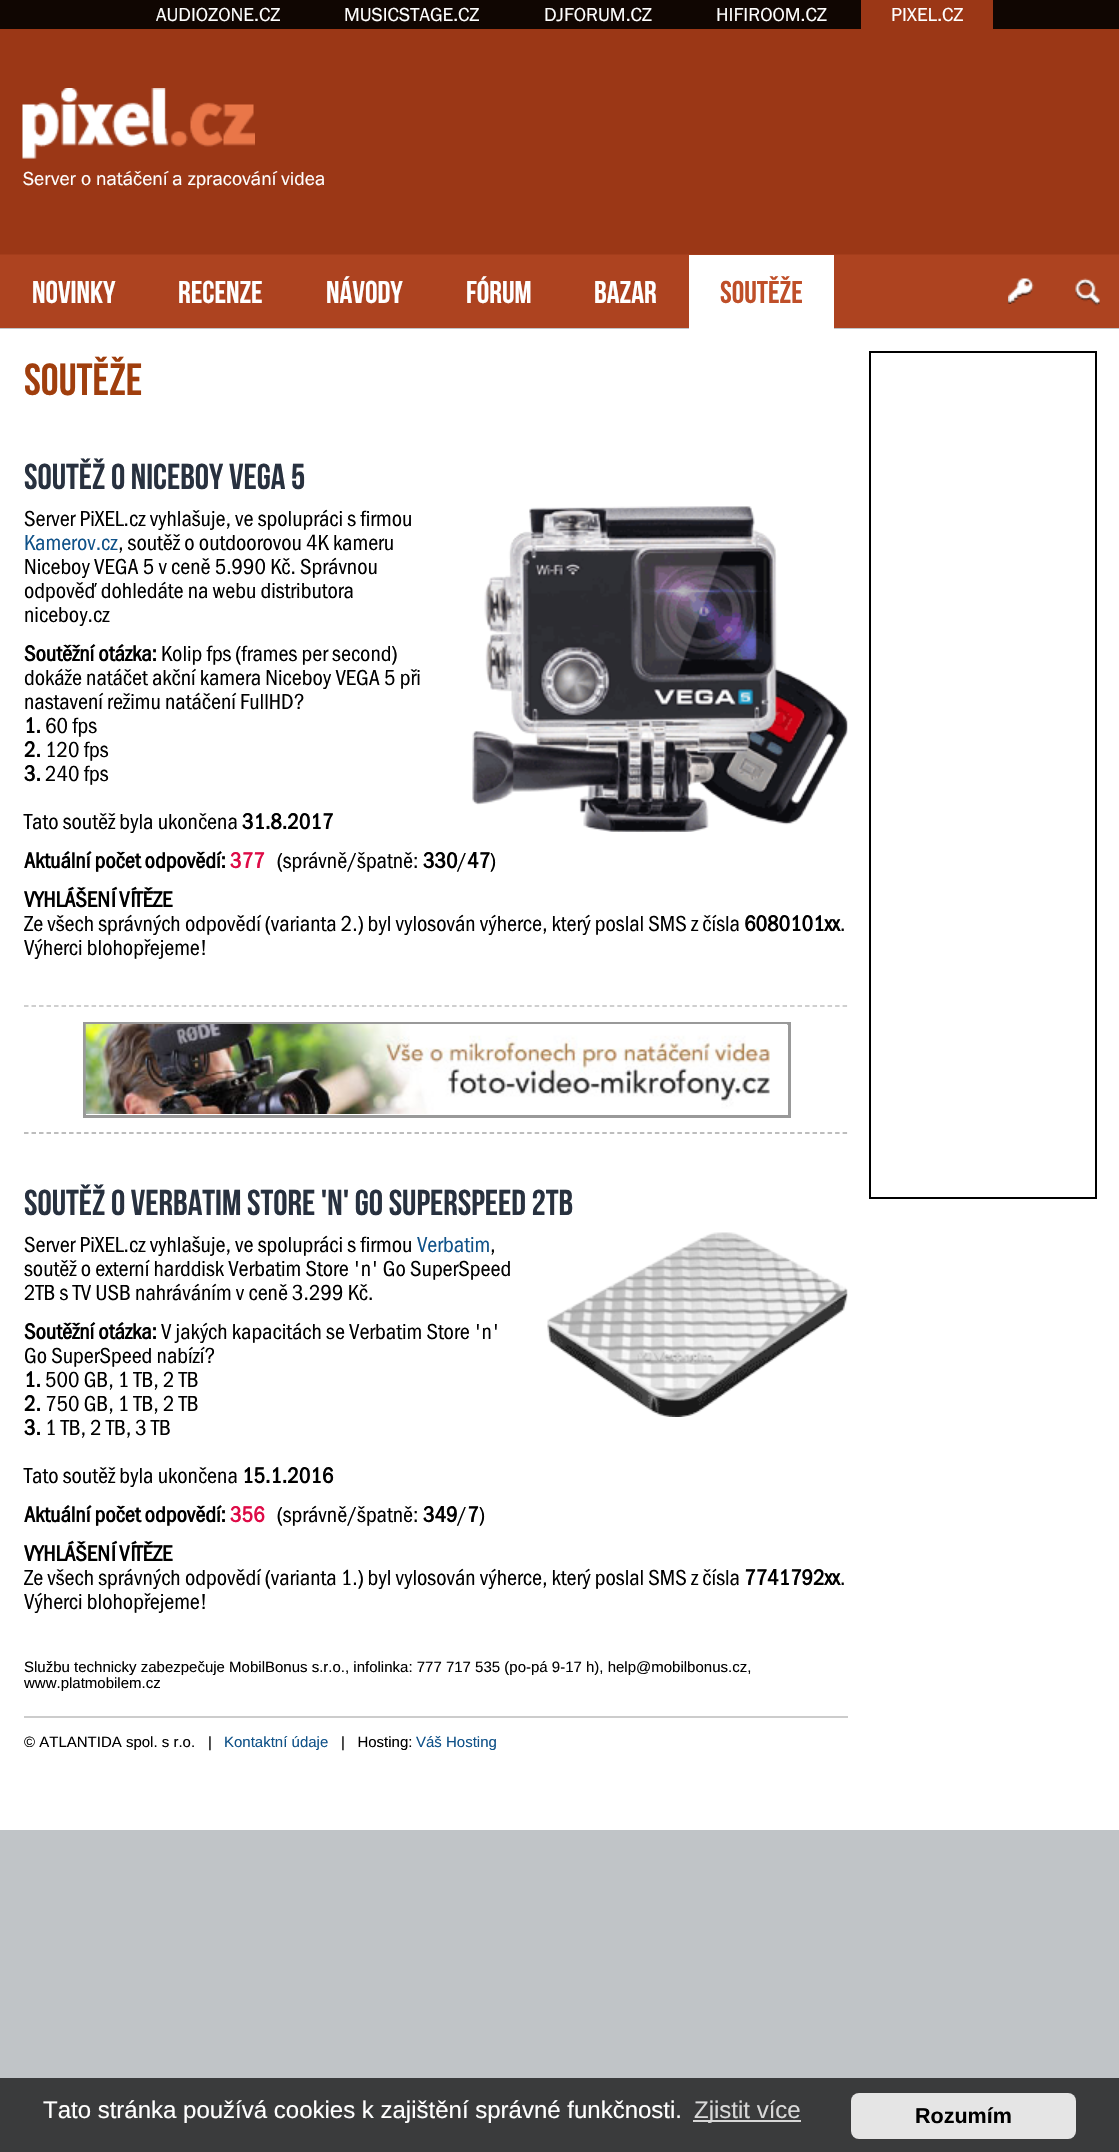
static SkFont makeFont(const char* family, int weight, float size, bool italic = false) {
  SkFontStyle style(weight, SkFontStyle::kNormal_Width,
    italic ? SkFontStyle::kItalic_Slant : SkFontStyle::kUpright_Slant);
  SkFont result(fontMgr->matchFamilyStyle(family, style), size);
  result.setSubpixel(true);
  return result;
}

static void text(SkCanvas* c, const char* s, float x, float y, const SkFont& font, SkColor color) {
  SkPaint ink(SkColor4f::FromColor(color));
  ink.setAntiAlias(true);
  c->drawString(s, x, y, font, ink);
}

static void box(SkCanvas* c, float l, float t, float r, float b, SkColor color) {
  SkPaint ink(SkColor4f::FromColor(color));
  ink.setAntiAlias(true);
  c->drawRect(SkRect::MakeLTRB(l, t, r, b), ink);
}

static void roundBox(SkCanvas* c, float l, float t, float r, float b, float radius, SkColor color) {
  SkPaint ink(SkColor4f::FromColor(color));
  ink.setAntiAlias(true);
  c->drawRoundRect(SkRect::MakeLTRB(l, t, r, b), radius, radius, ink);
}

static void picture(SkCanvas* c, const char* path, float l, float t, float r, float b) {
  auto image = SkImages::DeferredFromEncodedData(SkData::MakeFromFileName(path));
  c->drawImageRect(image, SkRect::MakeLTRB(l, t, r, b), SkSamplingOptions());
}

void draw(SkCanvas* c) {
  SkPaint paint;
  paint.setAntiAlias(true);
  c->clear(0xffc0c4c7);
  box(c, 0, 0, 1119, 29, 0xff100602);
  SkFont face1 = makeFont("Franklin Gothic", 400, 19.5f);
  text(c, "AUDIOZONE.CZ", 156, 21, face1, 0xffffffff);
  text(c, "MUSICSTAGE.CZ", 344, 21, face1, 0xffffffff);
  text(c, "DJFORUM.CZ", 544, 21, face1, 0xffffffff);
  text(c, "HIFIROOM.CZ", 716, 21, face1, 0xffffffff);
  box(c, 861, 0, 993, 29, 0xff9b3716);
  text(c, "PIXEL.CZ", 891, 21, face1, 0xffffffff);
  picture(c, "img_01.png", 0, 29, 1119, 328);
  picture(c, "img_02.png", 22, 88, 255, 159);
  text(c, "Server o natáčení a zpracování videa", 23, 185, face1, 0xffffffff);
  SkFont face2 = makeFont("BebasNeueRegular", 400, 31.5f);
  text(c, "NOVINKY", 32, 303, face2, 0xffffffff);
  text(c, "RECENZE", 178, 303, face2, 0xffffffff);
  text(c, "NÁVODY", 326, 303, face2, 0xffffffff);
  text(c, "FÓRUM", 466, 303, face2, 0xffffffff);
  text(c, "BAZAR", 594, 303, face2, 0xffffffff);
  box(c, 689, 255, 834, 329, 0xffffffff);
  text(c, "SOUTĚŽE", 720, 303, face2, 0xffbf4f29);
  picture(c, "img_03.png", 1008, 278, 1034, 304);
  picture(c, "img_04.png", 1075, 278, 1100, 306);
  box(c, 0, 329, 1119, 1830, 0xffffffff);
  SkFont face3 = makeFont("BebasNeueRegular", 400, 45);
  text(c, "Soutěže", 24, 395, face3, 0xffa03e0d);
  SkFont face4 = makeFont("BebasNeueRegular", 400, 36);
  text(c, "Soutěž o Niceboy VEGA 5", 24, 489, face4, 0xff28313f);
  picture(c, "img_05.png", 472, 506, 848, 832);
  SkFont face5 = makeFont("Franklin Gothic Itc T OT", 400, 22.5f);
  text(c, "Server PiXEL.cz vyhlašuje, ve spolupráci s firmou", 24, 526, face5, 0xff000000);
  text(c, "Kamerov.cz", 24, 550, face5, 0xff105289);
  text(c, ", soutěž o outdoorovou 4K kameru", 118, 550, face5, 0xff000000);
  text(c, "Niceboy VEGA 5 v ceně 5.990 Kč. Správnou", 24, 574, face5, 0xff000000);
  text(c, "odpověď dohledáte na webu distributora", 24, 598, face5, 0xff000000);
  text(c, "niceboy.cz", 24, 622, face5, 0xff000000);
  SkFont face6 = makeFont("Franklin Gothic Itc T OT", 700, 22.5f);
  text(c, "Soutěžní otázka:", 24, 661, face6, 0xff000000);
  text(c, "Kolip fps (frames per second)", 161, 661, face5, 0xff000000);
  text(c, "dokáže natáčet akční kamera Niceboy VEGA 5 při", 24, 685, face5, 0xff000000);
  text(c, "nastavení režimu natáčení FullHD?", 24, 709, face5, 0xff000000);
  text(c, "1.", 24, 733, face6, 0xff000000);
  text(c, "60 fps", 45, 733, face5, 0xff000000);
  text(c, "2.", 24, 757, face6, 0xff000000);
  text(c, "120 fps", 45, 757, face5, 0xff000000);
  text(c, "3.", 24, 781, face6, 0xff000000);
  text(c, "240 fps", 45, 781, face5, 0xff000000);
  text(c, "Tato soutěž byla ukončena", 24, 829, face5, 0xff000000);
  text(c, "31.8.2017", 242, 829, face6, 0xff000000);
  text(c, "Aktuální počet odpovědí:", 24, 868, face6, 0xff000000);
  text(c, "377", 230, 868, face6, 0xffde0a46);
  text(c, "(správně/špatně:", 277, 868, face5, 0xff000000);
  text(c, "330", 423, 868, face6, 0xff000000);
  text(c, "/", 457, 868, face5, 0xff000000);
  text(c, "47", 467, 868, face6, 0xff000000);
  text(c, ")", 490, 868, face5, 0xff000000);
  text(c, "VYHLÁŠENÍ VÍTĚZE", 24, 907, face6, 0xff000000);
  text(c, "Ze všech správných odpovědí (varianta 2.) byl vylosován výherce, který poslal SMS z čísla", 24, 931, face5, 0xff000000);
  text(c, "6080101xx", 744, 931, face6, 0xff000000);
  text(c, ".", 840, 931, face5, 0xff000000);
  text(c, "Výherci blohopřejeme!", 24, 955, face5, 0xff000000);
  paint.setStyle(SkPaint::kStroke_Style);
  paint.setStrokeWidth(1.5f);
  paint.setColor(0xffc0c0c0);
  paint.setPathEffect(SkDashPathEffect::Make({{4.5f, 3.01f}}, 0));
  c->drawPath(SkPathBuilder().moveTo(24, 1006).lineTo(847.5f, 1006).detach(), paint);
  paint.setPathEffect(nullptr);
  paint.setStrokeWidth(3);
  paint.setColor(0xff999999);
  c->drawRect(SkRect::MakeLTRB(84.5f, 1023.5f, 789.5f, 1116.5f), paint);
  picture(c, "img_06.png", 85, 1024, 788, 1114);
  paint.setStrokeWidth(1.5f);
  paint.setColor(0xffa8a8a8);
  paint.setPathEffect(SkDashPathEffect::Make({{4.5f, 3.01f}}, 0));
  c->drawPath(SkPathBuilder().moveTo(24, 1133).lineTo(847.5f, 1133).detach(), paint);
  paint.setPathEffect(nullptr);
  text(c, "Soutěž o Verbatim Store 'n' Go SuperSpeed 2TB", 24, 1215, face4, 0xff28313f);
  picture(c, "img_07.png", 547, 1232, 848, 1417);
  text(c, "Server PiXEL.cz vyhlašuje, ve spolupráci s firmou", 24, 1252, face5, 0xff000000);
  text(c, "Verbatim", 417, 1252, face5, 0xff105289);
  text(c, ",", 490, 1252, face5, 0xff000000);
  text(c, "soutěž o externí harddisk Verbatim Store 'n' Go SuperSpeed", 24, 1276, face5, 0xff000000);
  text(c, "2TB s TV USB nahráváním v ceně 3.299 Kč.", 24, 1300, face5, 0xff000000);
  text(c, "Soutěžní otázka:", 24, 1339, face6, 0xff000000);
  text(c, "V jakých kapacitách se Verbatim Store 'n'", 161, 1339, face5, 0xff000000);
  text(c, "Go SuperSpeed nabízí?", 24, 1363, face5, 0xff000000);
  text(c, "1.", 24, 1387, face6, 0xff000000);
  text(c, "500 GB, 1 TB, 2 TB", 45, 1387, face5, 0xff000000);
  text(c, "2.", 24, 1411, face6, 0xff000000);
  text(c, "750 GB, 1 TB, 2 TB", 45, 1411, face5, 0xff000000);
  text(c, "3.", 24, 1435, face6, 0xff000000);
  text(c, "1 TB, 2 TB, 3 TB", 45, 1435, face5, 0xff000000);
  text(c, "Tato soutěž byla ukončena", 24, 1483, face5, 0xff000000);
  text(c, "15.1.2016", 242, 1483, face6, 0xff000000);
  text(c, "Aktuální počet odpovědí:", 24, 1522, face6, 0xff000000);
  text(c, "356", 230, 1522, face6, 0xffde0a46);
  text(c, "(správně/špatně:", 277, 1522, face5, 0xff000000);
  text(c, "349", 423, 1522, face6, 0xff000000);
  text(c, "/", 457, 1522, face5, 0xff000000);
  text(c, "7", 467, 1522, face6, 0xff000000);
  text(c, ")", 479, 1522, face5, 0xff000000);
  text(c, "VYHLÁŠENÍ VÍTĚZE", 24, 1561, face6, 0xff000000);
  text(c, "Ze všech správných odpovědí (varianta 1.) byl vylosován výherce, který poslal SMS z čísla", 24, 1585, face5, 0xff000000);
  text(c, "7741792xx", 744, 1585, face6, 0xff000000);
  text(c, ".", 840, 1585, face5, 0xff000000);
  text(c, "Výherci blohopřejeme!", 24, 1609, face5, 0xff000000);
  SkFont face7 = makeFont("Liberation Sans", 400, 15);
  text(c, "Službu technicky zabezpečuje MobilBonus s.r.o., infolinka: 777 717 535 (po-pá 9-17 h), help@mobilbonus.cz,", 24, 1672, face7, 0xff000000);
  text(c, "www.platmobilem.cz", 24, 1688, face7, 0xff000000);
  box(c, 24, 1716, 848, 1718, 0xffcccccc);
  text(c, "© ATLANTIDA spol. s r.o.", 24, 1747, face7, 0xff000000);
  text(c, "|", 208, 1747, face7, 0xff000000);
  text(c, "Kontaktní údaje", 224, 1747, face7, 0xff105289);
  text(c, "|   Hosting:", 341, 1747, face7, 0xff000000);
  text(c, "Váš Hosting", 416, 1747, face7, 0xff105289);
  paint.setStrokeWidth(2);
  paint.setColor(0xff000000);
  c->drawRect(SkRect::MakeLTRB(870, 352, 1096, 1198), paint);
  box(c, 0, 2078, 1119, 2152, 0xff3a3b3c);
  SkFont face8 = makeFont("Liberation Sans", 400, 24);
  text(c, "Tato stránka používá cookies k zajištění správné funkčnosti.", 43, 2118, face8, 0xffffffff);
  box(c, 693, 2120, 801, 2122, 0xffd8d8d8);
  text(c, "Zjistit více", 694, 2118, face8, 0xffd8d8d8);
  roundBox(c, 851, 2093, 1076, 2139, 8, 0xffe5e5e5);
  SkFont face9 = makeFont("Liberation Sans", 700, 21.5f);
  text(c, "Rozumím", 915, 2123, face9, 0xff000000);
}
